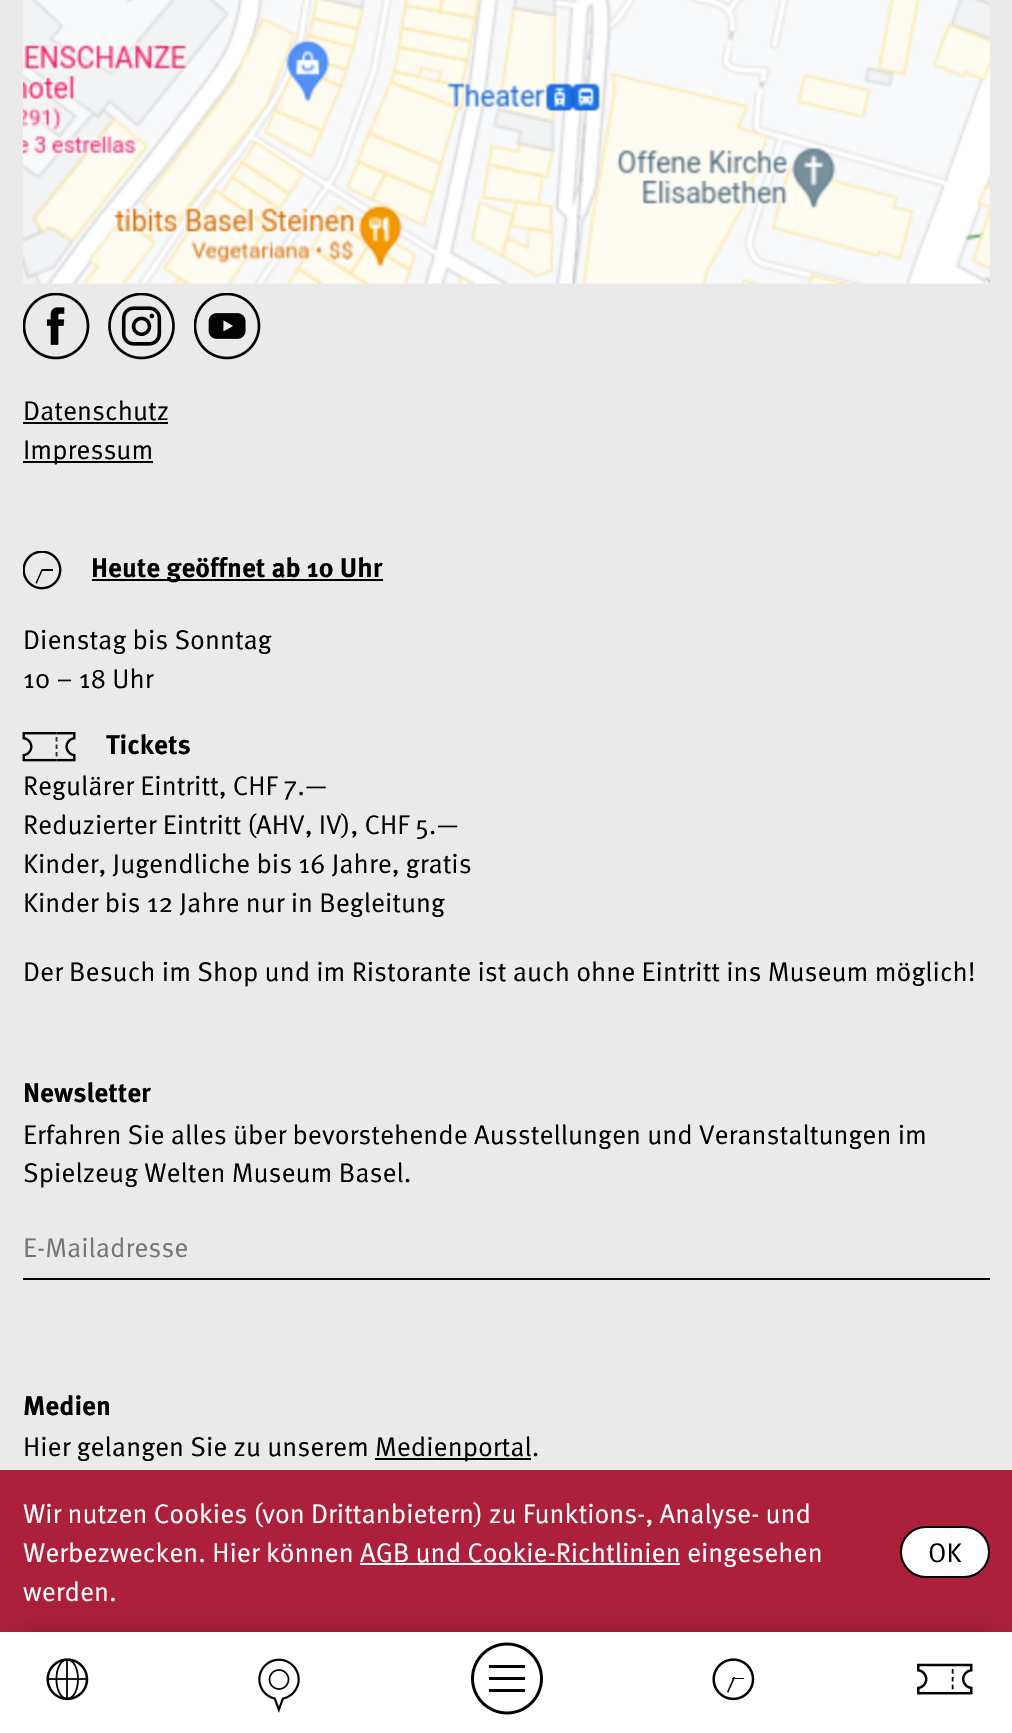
static SkFont makeFont(const char* family, int weight, float size, bool italic = false) {
  SkFontStyle style(weight, SkFontStyle::kNormal_Width,
    italic ? SkFontStyle::kItalic_Slant : SkFontStyle::kUpright_Slant);
  SkFont result(fontMgr->matchFamilyStyle(family, style), size);
  result.setSubpixel(true);
  return result;
}

static void text(SkCanvas* c, const char* s, float x, float y, const SkFont& font, SkColor color) {
  SkPaint ink(SkColor4f::FromColor(color));
  ink.setAntiAlias(true);
  c->drawString(s, x, y, font, ink);
}

static void box(SkCanvas* c, float l, float t, float r, float b, SkColor color) {
  SkPaint ink(SkColor4f::FromColor(color));
  ink.setAntiAlias(true);
  c->drawRect(SkRect::MakeLTRB(l, t, r, b), ink);
}

static void picture(SkCanvas* c, const char* path, float l, float t, float r, float b) {
  auto image = SkImages::DeferredFromEncodedData(SkData::MakeFromFileName(path));
  c->drawImageRect(image, SkRect::MakeLTRB(l, t, r, b), SkSamplingOptions());
}

void draw(SkCanvas* c) {
  SkPaint paint;
  paint.setAntiAlias(true);
  c->clear(0xffeaeaea);
  picture(c, "img_01.png", 23, 0, 990, 284);
  picture(c, "img_02.png", 23, 293, 90, 360);
  picture(c, "img_03.png", 108, 293, 175, 360);
  picture(c, "img_04.png", 194, 293, 261, 360);
  SkFont face1 = makeFont("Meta", 400, 27);
  text(c, "Datenschutz", 23, 420, face1, 0xff000000);
  box(c, 23, 422, 168, 424, 0xff000000);
  box(c, 23, 461, 153, 463, 0xff000000);
  text(c, "Impressum", 23, 459, face1, 0xff000000);
  picture(c, "img_05.png", 23, 551, 62, 590);
  box(c, 92, 579, 383, 581, 0xff000000);
  SkFont face2 = makeFont("Meta", 700, 27);
  text(c, "Heute geöffnet ab 10 Uhr", 91, 577, face2, 0xff000000);
  text(c, "Dienstag bis Sonntag", 23, 649, face1, 0xff000000);
  text(c, "10 – 18 Uhr", 23, 688, face1, 0xff000000);
  picture(c, "img_06.png", 22, 732, 76, 762);
  text(c, "Tickets", 106, 754, face2, 0xff000000);
  text(c, "Regulärer Eintritt, CHF 7.—", 23, 795, face1, 0xff000000);
  text(c, "Reduzierter Eintritt (AHV, IV), CHF 5.—", 23, 834, face1, 0xff000000);
  text(c, "Kinder, Jugendliche bis 16 Jahre, gratis", 23, 873, face1, 0xff000000);
  text(c, "Kinder bis 12 Jahre nur in Begleitung", 23, 912, face1, 0xff000000);
  text(c, "Der Besuch im Shop und im Ristorante ist auch ohne Eintritt ins Museum möglich!", 23, 981, face1, 0xff000000);
  text(c, "Newsletter", 23, 1102, face2, 0xff000000);
  text(c, "Erfahren Sie alles über bevorstehende Ausstellungen und Veranstaltungen im", 23, 1144, face1, 0xff000000);
  text(c, "Spielzeug Welten Museum Basel.", 23, 1182, face1, 0xff000000);
  box(c, 23, 1278, 990, 1280, 0xff000000);
  text(c, "E-Mailadresse", 23, 1257, face1, 0xff757575);
  text(c, "Medien", 23, 1415, face2, 0xff000000);
  text(c, "Hier gelangen Sie zu unserem", 23, 1456, face1, 0xff000000);
  box(c, 375, 1458, 531, 1460, 0xff000000);
  text(c, "Medienportal.", 375, 1456, face1, 0xff000000);
  box(c, 0, 1470, 1012, 1632, 0xffad203b);
  text(c, "Wir nutzen Cookies (von Drittanbietern) zu Funktions-, Analyse- und", 23, 1523, face1, 0xffffffff);
  text(c, "Werbezwecken. Hier können AGB und Cookie-Richtlinien eingesehen", 23, 1562, face1, 0xffffffff);
  box(c, 360, 1563, 680, 1565, 0xffffffff);
  text(c, "werden.", 23, 1601, face1, 0xffffffff);
  paint.setColor(0xffffffff);
  c->drawRoundRect(SkRect::MakeLTRB(901, 1527, 989, 1577), 25, 25, paint);
  paint.setStyle(SkPaint::kStroke_Style);
  paint.setStrokeWidth(2);
  paint.setColor(0xff000000);
  c->drawRoundRect(SkRect::MakeLTRB(901, 1527, 989, 1577), 25, 25, paint);
  text(c, "OK", 928, 1562, face1, 0xff000000);
  paint.setStyle(SkPaint::kFill_Style);
  paint.setColor(0x4d000000);
  paint.setMaskFilter(SkMaskFilter::MakeBlur(kNormal_SkBlurStyle, 22.5f));
  c->drawRect(SkRect::MakeLTRB(15, 1640, 998, 1712), paint);
  paint.setMaskFilter(nullptr);
  box(c, 0, 1632, 1012, 1733, 0xffffffff);
  picture(c, "img_07.png", 46, 1658, 89, 1701);
  picture(c, "img_08.png", 258, 1658, 300, 1713);
  picture(c, "img_09.png", 471, 1642, 543, 1715);
  picture(c, "img_10.png", 712, 1658, 755, 1701);
  picture(c, "img_11.png", 917, 1663, 973, 1695);
}
